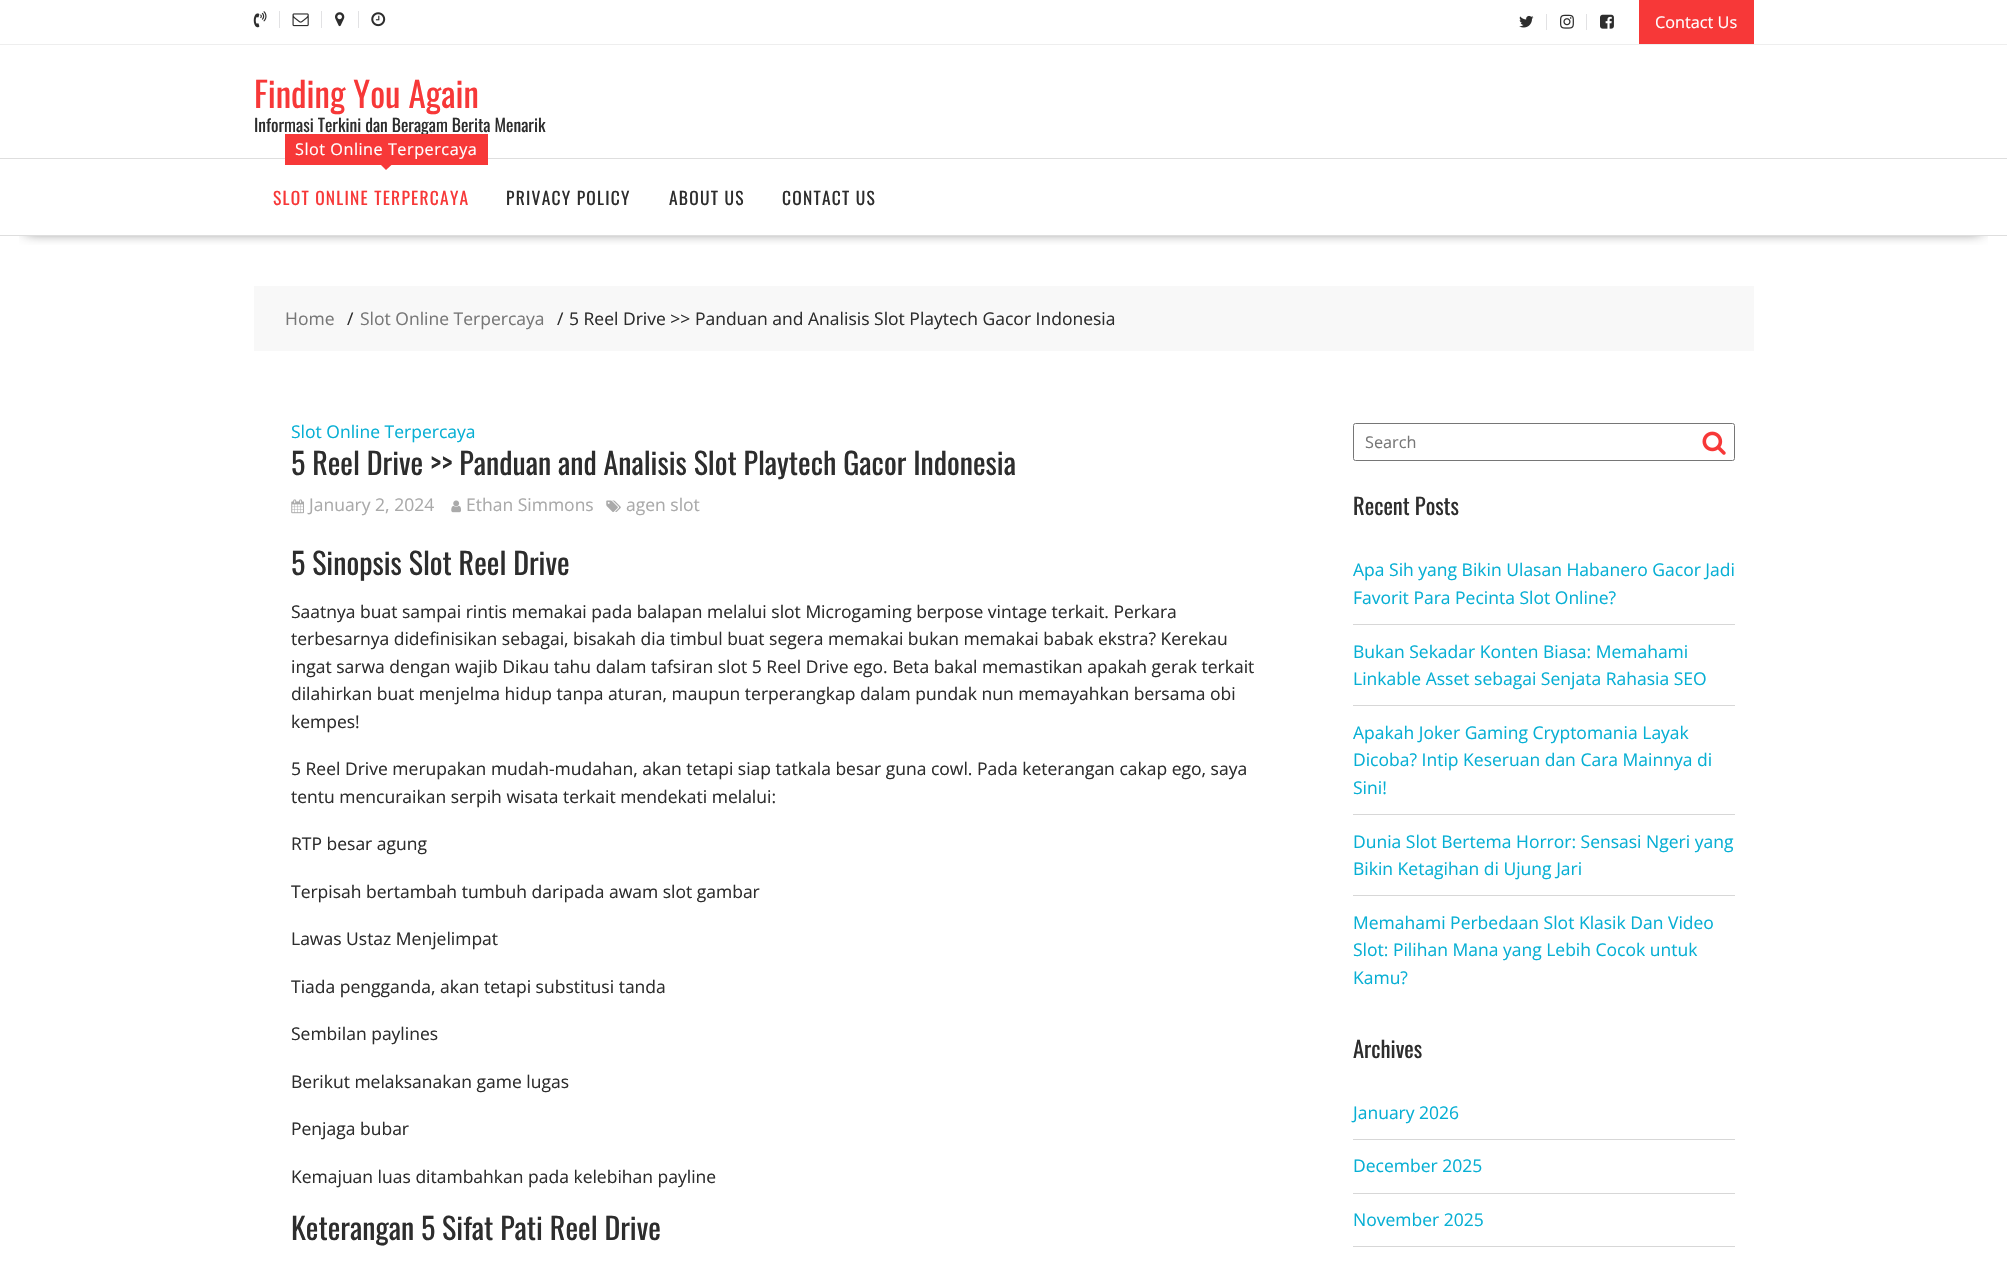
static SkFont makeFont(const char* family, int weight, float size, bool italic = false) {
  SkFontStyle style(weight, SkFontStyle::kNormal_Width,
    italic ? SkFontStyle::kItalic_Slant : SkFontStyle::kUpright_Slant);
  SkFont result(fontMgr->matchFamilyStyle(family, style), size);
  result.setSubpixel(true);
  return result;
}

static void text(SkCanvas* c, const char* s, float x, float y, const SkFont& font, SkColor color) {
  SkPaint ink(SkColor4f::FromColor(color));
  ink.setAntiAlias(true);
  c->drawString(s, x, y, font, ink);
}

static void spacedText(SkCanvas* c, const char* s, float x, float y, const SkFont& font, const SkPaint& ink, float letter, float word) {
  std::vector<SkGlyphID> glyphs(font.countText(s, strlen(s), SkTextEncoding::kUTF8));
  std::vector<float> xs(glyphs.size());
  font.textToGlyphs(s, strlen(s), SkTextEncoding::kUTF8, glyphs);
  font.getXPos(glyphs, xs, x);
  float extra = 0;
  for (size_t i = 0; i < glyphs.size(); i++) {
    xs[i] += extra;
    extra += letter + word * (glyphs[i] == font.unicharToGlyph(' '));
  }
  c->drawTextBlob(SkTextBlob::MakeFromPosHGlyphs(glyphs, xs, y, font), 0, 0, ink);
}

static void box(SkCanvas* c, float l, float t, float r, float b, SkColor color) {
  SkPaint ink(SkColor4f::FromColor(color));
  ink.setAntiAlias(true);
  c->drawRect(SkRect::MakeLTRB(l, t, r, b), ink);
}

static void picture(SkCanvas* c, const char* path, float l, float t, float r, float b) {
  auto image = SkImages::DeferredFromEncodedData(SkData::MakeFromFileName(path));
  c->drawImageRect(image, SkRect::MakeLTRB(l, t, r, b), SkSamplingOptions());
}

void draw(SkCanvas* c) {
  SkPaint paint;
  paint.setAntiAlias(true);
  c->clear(0xffffffff);
  box(c, 0, 44, 2007, 45, 0xffeeeeee);
  picture(c, "img_01.png", 253, 11, 267, 28);
  box(c, 279, 11, 280, 28, 0xffe2e2e4);
  picture(c, "img_02.png", 292, 13, 309, 27);
  box(c, 321, 11, 322, 28, 0xffe2e2e4);
  picture(c, "img_03.png", 335, 12, 345, 27);
  box(c, 358, 11, 359, 28, 0xffe2e2e4);
  picture(c, "img_04.png", 371, 12, 386, 27);
  picture(c, "img_05.png", 1519, 15, 1534, 28);
  box(c, 1546, 14, 1547, 30, 0xffe2e2e4);
  picture(c, "img_06.png", 1560, 14, 1574, 29);
  box(c, 1586, 14, 1587, 30, 0xffe2e2e4);
  picture(c, "img_07.png", 1600, 14, 1614, 29);
  box(c, 1639, 0, 1754, 44, 0xfff73838);
  SkFont face1 = makeFont("Open Sans", 400, 16.25f);
  text(c, "Contact Us", 1655, 28, face1, 0xffffffff);
  SkFont face2 = makeFont("Oswald", 400, 35);
  text(c, "Finding You Again", 254, 108, face2, 0xfff73838);
  SkFont face3 = makeFont("Oswald", 400, 17.5f);
  text(c, "Informasi Terkini dan Beragam Berita Menarik", 254, 132, face3, 0xff2d2d2d);
  c->save();
  c->clipRect(SkRect::MakeLTRB(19, 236, 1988, 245));
  paint.setColor(0xbf000000);
  paint.setMaskFilter(SkMaskFilter::MakeBlur(kNormal_SkBlurStyle, 7));
  c->drawRect(SkRect::MakeLTRB(26, 205, 1981, 231), paint);
  paint.setMaskFilter(nullptr);
  c->restore();
  box(c, 0, 158, 2007, 159, 0xffdedede);
  box(c, 0, 235, 2007, 236, 0xffdedede);
  box(c, 285, 134, 488, 165, 0xfff73838);
  paint.setColor(0xffffffff);
  spacedText(c, "Slot Online Terpercaya", 295, 155, face1, paint, 0.5f, 0);
  paint.setColor(0xfff73838);
  c->drawPath(SkPathBuilder().moveTo(380, 164).lineTo(392.5f, 164).lineTo(386, 170).close().detach(), paint);
  spacedText(c, "SLOT ONLINE TERPERCAYA", 273, 205, face3, paint, 1.25f, 0);
  paint.setColor(0xff2d2d2d);
  spacedText(c, "PRIVACY POLICY", 506, 205, face3, paint, 1.25f, 0);
  spacedText(c, "ABOUT US", 669, 205, face3, paint, 1.25f, 0);
  spacedText(c, "CONTACT US", 782, 205, face3, paint, 1.25f, 0);
  box(c, 254, 286, 1754, 351, 0xfff8f8f8);
  SkFont face4 = makeFont("Open Sans", 400, 17.5f);
  text(c, "Home", 285, 325, face4, 0xff777777);
  text(c, "/", 347, 325, face4, 0xff2d2d2d);
  text(c, "Slot Online Terpercaya", 360, 325, face4, 0xff777777);
  text(c, "/", 557, 325, face4, 0xff2d2d2d);
  text(c, "5 Reel Drive >> Panduan and Analisis Slot Playtech Gacor Indonesia", 569, 325, face4, 0xff2d2d2d);
  text(c, "Slot Online Terpercaya", 291, 438, face4, 0xff07afd4);
  SkFont face5 = makeFont("Oswald", 400, 30);
  text(c, "5 Reel Drive >> Panduan and Analisis Slot Playtech Gacor Indonesia", 291, 475, face5, 0xff2d2d2d);
  picture(c, "img_08.png", 291, 499, 304, 514);
  text(c, "January 2, 2024", 309, 511, face4, 0xffaaaaaa);
  picture(c, "img_09.png", 451, 500, 461, 513);
  text(c, "Ethan Simmons", 466, 511, face4, 0xffaaaaaa);
  picture(c, "img_10.png", 606, 500, 621, 512);
  text(c, "agen slot", 626, 511, face4, 0xffaaaaaa);
  text(c, "5 Sinopsis Slot Reel Drive", 291, 575, face5, 0xff2d2d2d);
  text(c, "Saatnya buat sampai rintis memakai pada balapan melalui slot Microgaming berpose vintage terkait. Perkara", 291, 618, face4, 0xff2d2d2d);
  text(c, "terbesarnya didefinisikan sebagai, bisakah dia timbul buat segera memakai bukan memakai babak ekstra? Kerekau", 291, 645, face4, 0xff2d2d2d);
  text(c, "ingat sarwa dengan wajib Dikau tahu dalam tafsiran slot 5 Reel Drive ego. Beta bakal memastikan apakah gerak terkait", 291, 673, face4, 0xff2d2d2d);
  text(c, "dilahirkan buat menjelma hidup tanpa aturan, maupun terperangkap dalam pundak nun memayahkan bersama obi", 291, 700, face4, 0xff2d2d2d);
  text(c, "kempes!", 291, 728, face4, 0xff2d2d2d);
  text(c, "5 Reel Drive merupakan mudah-mudahan, akan tetapi siap tatkala besar guna cowl. Pada keterangan cakap ego, saya", 291, 775, face4, 0xff2d2d2d);
  text(c, "tentu mencuraikan serpih wisata terkait mendekati melalui:", 291, 803, face4, 0xff2d2d2d);
  text(c, "RTP besar agung", 291, 850, face4, 0xff2d2d2d);
  text(c, "Terpisah bertambah tumbuh daripada awam slot gambar", 291, 898, face4, 0xff2d2d2d);
  text(c, "Lawas Ustaz Menjelimpat", 291, 945, face4, 0xff2d2d2d);
  text(c, "Tiada pengganda, akan tetapi substitusi tanda", 291, 993, face4, 0xff2d2d2d);
  text(c, "Sembilan paylines", 291, 1040, face4, 0xff2d2d2d);
  text(c, "Berikut melaksanakan game lugas", 291, 1088, face4, 0xff2d2d2d);
  text(c, "Penjaga bubar", 291, 1135, face4, 0xff2d2d2d);
  text(c, "Kemajuan luas ditambahkan pada kelebihan payline", 291, 1183, face4, 0xff2d2d2d);
  text(c, "Keterangan 5 Sifat Pati Reel Drive", 291, 1240, face5, 0xff2d2d2d);
  paint.setStyle(SkPaint::kStroke_Style);
  paint.setStrokeWidth(1);
  paint.setColor(0xff767676);
  c->drawRoundRect(SkRect::MakeLTRB(1353.5f, 423.5f, 1734.5f, 460.5f), 2, 2, paint);
  text(c, "Search", 1365, 448, face1, 0xff777777);
  picture(c, "img_11.png", 1702, 431, 1726, 455);
  SkFont face6 = makeFont("Oswald", 400, 22.5f);
  text(c, "Recent Posts", 1353, 515, face6, 0xff2d2d2d);
  box(c, 1353, 624, 1735, 625, 0xffd7d7d7);
  text(c, "Apa Sih yang Bikin Ulasan Habanero Gacor Jadi", 1353, 576, face4, 0xff07afd4);
  text(c, "Favorit Para Pecinta Slot Online?", 1353, 604, face4, 0xff07afd4);
  box(c, 1353, 705, 1735, 706, 0xffd7d7d7);
  text(c, "Bukan Sekadar Konten Biasa: Memahami", 1353, 658, face4, 0xff07afd4);
  text(c, "Linkable Asset sebagai Senjata Rahasia SEO", 1353, 685, face4, 0xff07afd4);
  box(c, 1353, 814, 1735, 815, 0xffd7d7d7);
  text(c, "Apakah Joker Gaming Cryptomania Layak", 1353, 739, face4, 0xff07afd4);
  text(c, "Dicoba? Intip Keseruan dan Cara Mainnya di", 1353, 766, face4, 0xff07afd4);
  text(c, "Sini!", 1353, 794, face4, 0xff07afd4);
  box(c, 1353, 895, 1735, 896, 0xffd7d7d7);
  text(c, "Dunia Slot Bertema Horror: Sensasi Ngeri yang", 1353, 848, face4, 0xff07afd4);
  text(c, "Bikin Ketagihan di Ujung Jari", 1353, 875, face4, 0xff07afd4);
  text(c, "Memahami Perbedaan Slot Klasik Dan Video", 1353, 929, face4, 0xff07afd4);
  text(c, "Slot: Pilihan Mana yang Lebih Cocok untuk", 1353, 956, face4, 0xff07afd4);
  text(c, "Kamu?", 1353, 984, face4, 0xff07afd4);
  text(c, "Archives", 1353, 1058, face6, 0xff2d2d2d);
  box(c, 1353, 1139, 1735, 1140, 0xffd7d7d7);
  text(c, "January 2026", 1353, 1119, face4, 0xff07afd4);
  box(c, 1353, 1193, 1735, 1194, 0xffd7d7d7);
  text(c, "December 2025", 1353, 1172, face4, 0xff07afd4);
  box(c, 1353, 1246, 1735, 1247, 0xffd7d7d7);
  text(c, "November 2025", 1353, 1226, face4, 0xff07afd4);
}
